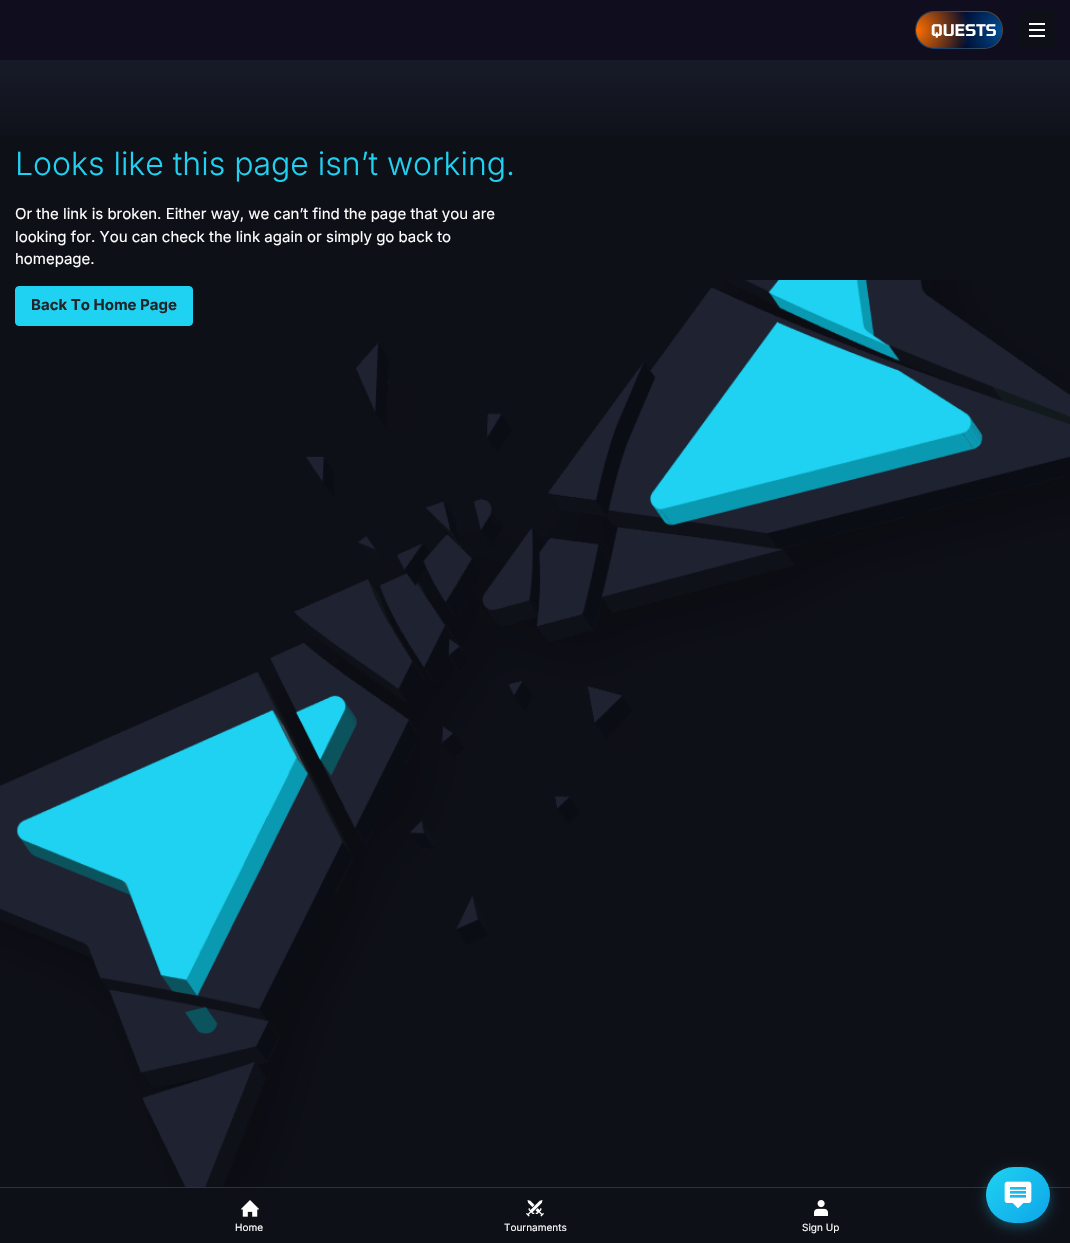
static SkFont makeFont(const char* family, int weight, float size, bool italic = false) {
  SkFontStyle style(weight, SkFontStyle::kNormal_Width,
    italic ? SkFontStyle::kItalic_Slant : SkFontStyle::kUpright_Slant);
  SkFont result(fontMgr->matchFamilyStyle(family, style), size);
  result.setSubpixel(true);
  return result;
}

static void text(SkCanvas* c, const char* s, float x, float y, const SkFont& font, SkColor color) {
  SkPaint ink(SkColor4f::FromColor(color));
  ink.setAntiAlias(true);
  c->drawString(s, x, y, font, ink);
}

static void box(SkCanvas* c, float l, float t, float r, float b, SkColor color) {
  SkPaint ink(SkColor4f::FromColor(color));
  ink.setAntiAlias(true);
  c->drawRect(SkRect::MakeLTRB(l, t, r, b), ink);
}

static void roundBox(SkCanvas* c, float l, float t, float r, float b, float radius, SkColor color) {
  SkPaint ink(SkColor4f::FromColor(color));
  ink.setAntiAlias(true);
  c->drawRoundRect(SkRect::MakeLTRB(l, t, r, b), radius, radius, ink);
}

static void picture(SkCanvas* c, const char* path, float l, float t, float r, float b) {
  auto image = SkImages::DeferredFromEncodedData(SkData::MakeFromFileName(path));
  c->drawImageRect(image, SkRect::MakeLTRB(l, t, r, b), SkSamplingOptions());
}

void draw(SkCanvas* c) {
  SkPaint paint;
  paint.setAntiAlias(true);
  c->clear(0xff0e1018);
  box(c, 0, 0, 1070, 60, 0xff100d1e);
  {
    const SkColor colors[] = {0xff004281, 0xff664d31};
    const float stops[] = {0, 1};
    const SkPoint ends[] = {{928, 62}, {991, -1.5f}};
    paint.setShader(SkGradientShader::MakeLinear(ends, colors, stops, 2, SkTileMode::kClamp));
    paint.setAlpha(255);
  }
  c->drawRoundRect(SkRect::MakeLTRB(915, 11, 1003, 49), 19, 19, paint);
  roundBox(c, 916, 12, 1002, 48, 18, 0xff00092a);
  {
    const SkColor colors[] = {0x800090ff, 0x000090ff};
    const float stops[] = {0, 0.5f};
    paint.setShader(SkGradientShader::MakeRadial({1002, 30}, 88, colors, stops, 2, SkTileMode::kClamp));
    paint.setAlpha(255);
  }
  c->drawRoundRect(SkRect::MakeLTRB(916, 12, 1002, 48), 18, 18, paint);
  {
    const SkColor colors[] = {0xffff6f00, 0x00ff6f00};
    const float stops[] = {0, 0.6f};
    paint.setShader(SkGradientShader::MakeRadial({916, 30}, 88, colors, stops, 2, SkTileMode::kClamp));
    paint.setAlpha(255);
  }
  c->drawRoundRect(SkRect::MakeLTRB(916, 12, 1002, 48), 18, 18, paint);
  SkFont face1 = makeFont("Tomorrow", 600, 16);
  text(c, "QUESTS", 931, 36, face1, 0xffffffff);
  roundBox(c, 1019, 12, 1055, 48, 3, 0xff0e1018);
  picture(c, "img_01.png", 1029, 23, 1045, 37);
  picture(c, "img_02.png", 0, 280, 1070, 1187);
  {
    const SkColor colors[] = {0xff161926, 0xff0e1018};
    const float stops[] = {0.06f, 0.4f};
    const SkPoint ends[] = {{535, 60}, {535, 280}};
    paint.setShader(SkGradientShader::MakeLinear(ends, colors, stops, 2, SkTileMode::kClamp));
    paint.setAlpha(255);
  }
  c->drawRect(SkRect::MakeLTRB(0, 60, 1070, 135), paint);
  SkFont face2 = makeFont("Inter", 300, 32);
  text(c, "Looks like this page isn’t working.", 15, 175, face2, 0xff1fd2f1);
  SkFont face3 = makeFont("Inter", 400, 15);
  text(c, "Or the link is broken. Either way, we can’t find the page that you are", 15, 219, face3, 0xffffffff);
  text(c, "looking for. You can check the link again or simply go back to", 15, 242, face3, 0xffffffff);
  text(c, "homepage.", 15, 264, face3, 0xffffffff);
  paint.setShader(nullptr);
  paint.setColor(0xff1fd2f1);
  c->drawRoundRect(SkRect::MakeLTRB(15.5f, 286.5f, 192.5f, 325.5f), 3.5f, 3.5f, paint);
  paint.setStyle(SkPaint::kStroke_Style);
  paint.setStrokeWidth(1);
  c->drawRoundRect(SkRect::MakeLTRB(15.5f, 286.5f, 192.5f, 325.5f), 3.5f, 3.5f, paint);
  SkFont face4 = makeFont("Inter", 700, 15);
  text(c, "Back To Home Page", 31, 310, face4, 0xff212529);
  box(c, 0, 1187, 1070, 1188, 0xff0d3d5a);
  picture(c, "img_03.png", 241, 1200, 259, 1217);
  SkFont face5 = makeFont("Inter", 400, 10);
  text(c, "Home", 235, 1231, face5, 0xffffffff);
  picture(c, "img_04.png", 526, 1200, 544, 1217);
  text(c, "Tournaments", 504, 1231, face5, 0xffffffff);
  picture(c, "img_05.png", 814, 1200, 828, 1216);
  text(c, "Sign Up", 802, 1231, face5, 0xffffffff);
  paint.setStyle(SkPaint::kFill_Style);
  paint.setColor(0x4d1fd2f1);
  paint.setMaskFilter(SkMaskFilter::MakeBlur(kNormal_SkBlurStyle, 6));
  c->drawRoundRect(SkRect::MakeLTRB(986, 1171, 1050, 1227), 28, 28, paint);
  paint.setMaskFilter(nullptr);
  {
    const SkColor colors[] = {0xff1fd2f1, 0xff0ea5e9};
    const float stops[] = {0, 1};
    const SkPoint ends[] = {{988, 1165}, {1048, 1225}};
    paint.setShader(SkGradientShader::MakeLinear(ends, colors, stops, 2, SkTileMode::kClamp));
    paint.setAlpha(255);
  }
  c->drawRoundRect(SkRect::MakeLTRB(986, 1167, 1050, 1223), 28, 28, paint);
  picture(c, "img_06.png", 1004, 1181, 1032, 1209);
}
